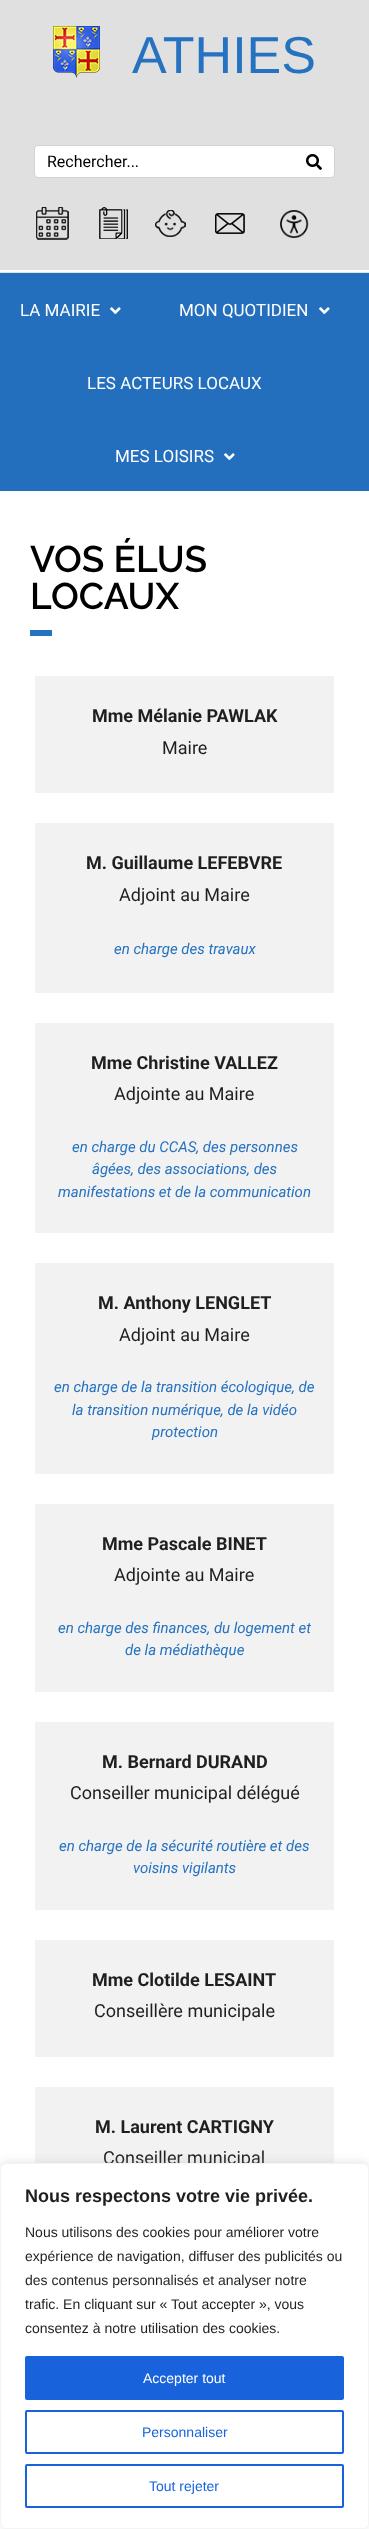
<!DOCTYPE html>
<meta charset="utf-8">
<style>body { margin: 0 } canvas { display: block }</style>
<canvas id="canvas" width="369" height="2529"></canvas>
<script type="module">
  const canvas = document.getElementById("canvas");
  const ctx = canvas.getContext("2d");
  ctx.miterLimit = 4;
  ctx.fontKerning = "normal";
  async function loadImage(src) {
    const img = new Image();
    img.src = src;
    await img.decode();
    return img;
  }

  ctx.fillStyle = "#ffffff";
  ctx.fillRect(0, 0, 369, 2529);
  ctx.fillStyle = "#e0e0e0";
  ctx.fillRect(0, 0, 369, 270);
  ctx.drawImage(await loadImage("img1.png"), 53, 26, 47, 52);
  ctx.font = "52px Liberation Sans";
  ctx.fillStyle = "#2572c0";
  ctx.fillText("ATHIES", 132, 73);
  ctx.fillStyle = "#ffffff";
  ctx.beginPath();
  ctx.roundRect(34.5, 145.5, 300, 32, 3.5);
  ctx.fill();
  ctx.strokeStyle = "#ced4da";
  ctx.stroke();
  ctx.font = "16px Roboto";
  ctx.fillStyle = "#000000";
  ctx.fillText("Rechercher...", 47, 167);
  ctx.drawImage(await loadImage("img2.png"), 306, 154, 16, 16);
  ctx.drawImage(await loadImage("img3.png"), 36, 207, 33, 33);
  ctx.drawImage(await loadImage("img4.png"), 99, 207, 29, 32);
  ctx.drawImage(await loadImage("img5.png"), 155, 210, 31, 27);
  ctx.drawImage(await loadImage("img6.png"), 215, 213, 30, 21);
  ctx.drawImage(await loadImage("img7.png"), 280, 210, 29, 28);
  ctx.fillStyle = "#236fbd";
  ctx.fillRect(0, 273, 369, 218);
  ctx.fillStyle = "#e2e2e2";
  ctx.fillRect(0, 272, 369, 1);
  ctx.font = "17px Roboto";
  ctx.fillStyle = "#ffffff";
  ctx.fillText("LA MAIRIE", 20, 316);
  ctx.drawImage(await loadImage("img8.png"), 110, 307, 11, 7);
  ctx.fillText("MON QUOTIDIEN", 179, 316);
  ctx.drawImage(await loadImage("img8.png"), 319, 307, 11, 7);
  ctx.fillText("LES ACTEURS LOCAUX", 87, 389);
  ctx.fillText("MES LOISIRS", 115, 462);
  ctx.drawImage(await loadImage("img8.png"), 224, 453, 11, 7);
  ctx.font = "600 37px Raleway";
  ctx.fillStyle = "#000000";
  ctx.fillText("VOS ÉLUS", 30, 572);
  ctx.fillText("LOCAUX", 30, 609);
  ctx.fillStyle = "#2572c0";
  ctx.fillRect(30, 630, 22, 6);
  ctx.fillStyle = "#f2f2f2";
  ctx.fillRect(35, 676, 299, 117);
  ctx.font = "bold 18px Roboto";
  ctx.fillStyle = "#1f1f1f";
  ctx.fillText("Mme Mélanie PAWLAK", 92, 722);
  ctx.font = "18px Roboto";
  ctx.fillText("Maire", 162, 754);
  ctx.fillStyle = "#f2f2f2";
  ctx.fillRect(35, 823, 299, 170);
  ctx.font = "bold 18px Roboto";
  ctx.fillStyle = "#1f1f1f";
  ctx.fillText("M. Guillaume LEFEBVRE", 86, 869);
  ctx.font = "18px Roboto";
  ctx.fillText("Adjoint au Maire", 119, 901);
  ctx.font = "italic 15px Roboto";
  ctx.fillStyle = "#2572c0";
  ctx.fillText("en charge des travaux", 114, 954);
  ctx.fillStyle = "#f2f2f2";
  ctx.fillRect(35, 1023, 299, 210);
  ctx.font = "bold 18px Roboto";
  ctx.fillStyle = "#1f1f1f";
  ctx.fillText("Mme Christine VALLEZ", 91, 1069);
  ctx.font = "18px Roboto";
  ctx.fillText("Adjointe au Maire", 114, 1100);
  ctx.font = "italic 15px Roboto";
  ctx.fillStyle = "#2572c0";
  ctx.fillText("en charge du CCAS, des personnes", 72, 1152);
  ctx.fillText("âgées, des associations, des", 92, 1174);
  ctx.fillText("manifestations et de la communication", 58, 1197);
  ctx.fillStyle = "#f2f2f2";
  ctx.fillRect(35, 1263, 299, 211);
  ctx.font = "bold 18px Roboto";
  ctx.fillStyle = "#1f1f1f";
  ctx.fillText("M. Anthony LENGLET", 98, 1309);
  ctx.font = "18px Roboto";
  ctx.fillText("Adjoint au Maire", 119, 1341);
  ctx.font = "italic 15px Roboto";
  ctx.fillStyle = "#2572c0";
  ctx.fillText("en charge de la transition écologique, de", 54, 1392);
  ctx.fillText("la transition numérique, de la vidéo", 72, 1415);
  ctx.fillText("protection", 152, 1437);
  ctx.fillStyle = "#f2f2f2";
  ctx.fillRect(35, 1504, 299, 188);
  ctx.font = "bold 18px Roboto";
  ctx.fillStyle = "#1f1f1f";
  ctx.fillText("Mme Pascale BINET", 102, 1550);
  ctx.font = "18px Roboto";
  ctx.fillText("Adjointe au Maire", 114, 1581);
  ctx.font = "italic 15px Roboto";
  ctx.fillStyle = "#2572c0";
  ctx.fillText("en charge des finances, du logement et", 58, 1633);
  ctx.fillText("de la médiathèque", 125, 1655);
  ctx.fillStyle = "#f2f2f2";
  ctx.fillRect(35, 1722, 299, 188);
  ctx.font = "bold 18px Roboto";
  ctx.fillStyle = "#1f1f1f";
  ctx.fillText("M. Bernard DURAND", 102, 1768);
  ctx.font = "18px Roboto";
  ctx.fillText("Conseiller municipal délégué", 70, 1799);
  ctx.font = "italic 15px Roboto";
  ctx.fillStyle = "#2572c0";
  ctx.fillText("en charge de la sécurité routière et des", 59, 1851);
  ctx.fillText("voisins vigilants", 133, 1873);
  ctx.fillStyle = "#f2f2f2";
  ctx.fillRect(35, 1940, 299, 117);
  ctx.font = "bold 18px Roboto";
  ctx.fillStyle = "#1f1f1f";
  ctx.fillText("Mme Clotilde LESAINT", 92, 1986);
  ctx.font = "18px Roboto";
  ctx.fillText("Conseillère municipale", 94, 2017);
  ctx.fillStyle = "#f2f2f2";
  ctx.fillRect(35, 2087, 299, 76);
  ctx.font = "bold 18px Roboto";
  ctx.fillStyle = "#1f1f1f";
  ctx.fillText("M. Laurent CARTIGNY", 95, 2133);
  ctx.font = "18px Roboto";
  ctx.fillText("Conseiller municipal", 103, 2164);
  ctx.fillStyle = "rgba(172, 171, 171, 0.3)";
  ctx.filter = "blur(5px)";
  ctx.beginPath();
  ctx.roundRect(0, 2162, 369, 366, 6);
  ctx.fill();
  ctx.filter = "none";
  ctx.fillStyle = "#ffffff";
  ctx.beginPath();
  ctx.roundRect(0.5, 2163.5, 368, 365, 5.5);
  ctx.fill();
  ctx.strokeStyle = "#f4f4f4";
  ctx.stroke();
  ctx.font = "bold 18px Liberation Sans";
  ctx.fillStyle = "#1f1f1f";
  ctx.fillText("Nous respectons votre vie privée.", 25, 2202);
  ctx.font = "14px Liberation Sans";
  ctx.fillText("Nous utilisons des cookies pour améliorer votre", 25, 2237);
  ctx.fillText("expérience de navigation, diffuser des publicités ou", 25, 2261);
  ctx.fillText("des contenus personnalisés et analyser notre", 25, 2285);
  ctx.fillText("trafic. En cliquant sur « Tout accepter », vous", 25, 2309);
  ctx.fillText("consentez à notre utilisation des cookies.", 25, 2333);
  ctx.fillStyle = "#1863dc";
  ctx.beginPath();
  ctx.roundRect(26, 2357, 317, 42, 1);
  ctx.fill();
  ctx.strokeStyle = "#1863dc";
  ctx.lineWidth = 2;
  ctx.stroke();
  ctx.fillStyle = "#ffffff";
  ctx.fillText("Accepter tout", 143, 2383);
  ctx.beginPath();
  ctx.roundRect(26, 2411, 317, 42, 1);
  ctx.stroke();
  ctx.fillStyle = "#1863dc";
  ctx.fillText("Personnaliser", 142, 2437);
  ctx.beginPath();
  ctx.roundRect(26, 2465, 317, 42, 1);
  ctx.stroke();
  ctx.fillText("Tout rejeter", 149, 2491);
</script>
